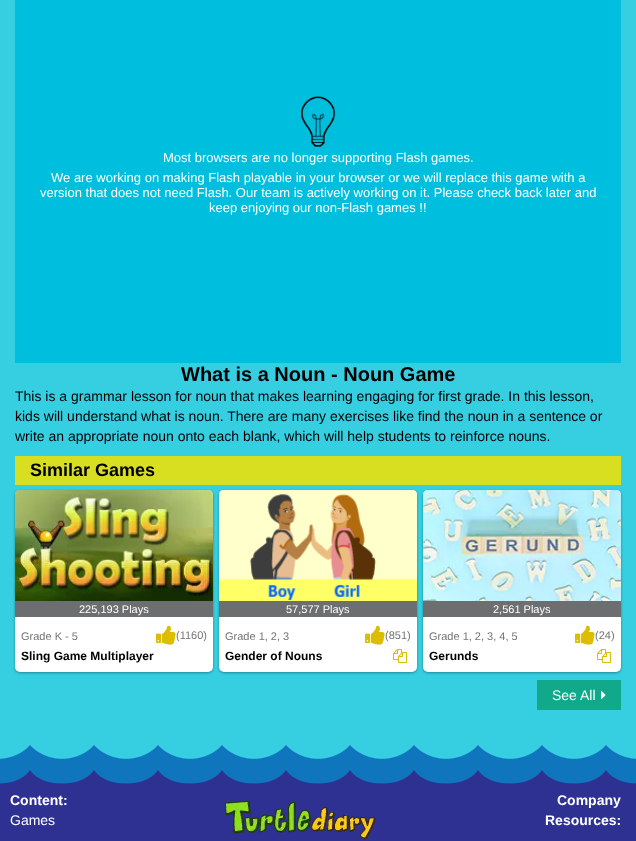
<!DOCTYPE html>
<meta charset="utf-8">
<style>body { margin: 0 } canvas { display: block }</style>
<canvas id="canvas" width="636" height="841"></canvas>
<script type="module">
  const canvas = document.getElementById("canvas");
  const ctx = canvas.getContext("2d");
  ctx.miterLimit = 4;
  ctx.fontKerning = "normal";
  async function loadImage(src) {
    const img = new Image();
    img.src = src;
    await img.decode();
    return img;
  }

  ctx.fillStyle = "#35cfe1";
  ctx.fillRect(0, 0, 636, 841);
  ctx.fillStyle = "#00bedd";
  ctx.fillRect(15, 0, 606, 363);
  ctx.drawImage(await loadImage("img1.png"), 300, 96, 36, 51);
  ctx.font = "13px Liberation Sans";
  ctx.fillStyle = "#ffffff";
  ctx.fillText("Most browsers are no longer supporting Flash games.", 163, 162);
  ctx.fillText("We are working on making Flash playable in your browser or we will replace this game with a", 51, 182);
  ctx.fillText("version that does not need Flash. Our team is actively working on it. Please check back later and", 40, 197);
  ctx.fillText("keep enjoying our non-Flash games !!", 209, 212);
  ctx.font = "bold 20px Liberation Sans";
  ctx.fillStyle = "#000000";
  ctx.fillText("What is a Noun - Noun Game", 181, 381);
  ctx.font = "14px Liberation Sans";
  ctx.fillText("This is a grammar lesson for noun that makes learning engaging for first grade. In this lesson,", 15, 401);
  ctx.fillText("kids will understand what is noun. There are many exercises like find the noun in a sentence or", 15, 421);
  ctx.fillText("write an appropriate noun onto each blank, which will help students to reinforce nouns.", 15, 441);
  ctx.fillStyle = "#d8df20";
  ctx.fillRect(15, 456, 606, 29);
  ctx.font = "bold 18px Liberation Sans";
  ctx.fillStyle = "#000000";
  ctx.fillText("Similar Games", 30, 476);
  ctx.fillStyle = "rgba(0, 0, 0, 0.24)";
  ctx.filter = "blur(1px)";
  ctx.beginPath();
  ctx.roundRect(15, 491, 198, 182, 5);
  ctx.fill();
  ctx.filter = "none";
  ctx.fillStyle = "rgba(0, 0, 0, 0.12)";
  ctx.filter = "blur(1.5px)";
  ctx.beginPath();
  ctx.roundRect(15, 491, 198, 182, 5);
  ctx.fill();
  ctx.filter = "none";
  ctx.fillStyle = "#ffffff";
  ctx.beginPath();
  ctx.roundRect(15, 490, 198, 182, 5);
  ctx.fill();
  ctx.drawImage(await loadImage("img2.png"), 15, 490, 198, 111);
  ctx.drawImage(await loadImage("img3.png"), 15, 490, 198, 5);
  ctx.fillStyle = "#6d6e70";
  ctx.fillRect(15, 601, 198, 16);
  ctx.font = "11px Liberation Sans";
  ctx.fillStyle = "#ffffff";
  ctx.fillText("225,193 Plays", 79, 613);
  ctx.fillStyle = "#757577";
  ctx.fillText("Grade K - 5", 21, 640);
  ctx.drawImage(await loadImage("img4.png"), 156, 625, 20, 20);
  ctx.fillText("(1160)", 176, 639);
  ctx.font = "bold 12px Liberation Sans";
  ctx.fillStyle = "#000000";
  ctx.fillText("Sling Game Multiplayer", 21, 660);
  ctx.fillStyle = "rgba(0, 0, 0, 0.24)";
  ctx.filter = "blur(1px)";
  ctx.beginPath();
  ctx.roundRect(219, 491, 198, 182, 5);
  ctx.fill();
  ctx.filter = "none";
  ctx.fillStyle = "rgba(0, 0, 0, 0.12)";
  ctx.filter = "blur(1.5px)";
  ctx.beginPath();
  ctx.roundRect(219, 491, 198, 182, 5);
  ctx.fill();
  ctx.filter = "none";
  ctx.fillStyle = "#ffffff";
  ctx.beginPath();
  ctx.roundRect(219, 490, 198, 182, 5);
  ctx.fill();
  ctx.drawImage(await loadImage("img5.png"), 219, 490, 198, 111);
  ctx.drawImage(await loadImage("img6.png"), 219, 490, 198, 5);
  ctx.fillStyle = "#6d6e70";
  ctx.fillRect(219, 601, 198, 16);
  ctx.font = "11px Liberation Sans";
  ctx.fillStyle = "#ffffff";
  ctx.fillText("57,577 Plays", 286, 613);
  ctx.fillStyle = "#757577";
  ctx.fillText("Grade 1, 2, 3", 225, 640);
  ctx.drawImage(await loadImage("img4.png"), 365, 625, 20, 20);
  ctx.fillText("(851)", 385, 639);
  ctx.font = "bold 12px Liberation Sans";
  ctx.fillStyle = "#000000";
  ctx.fillText("Gender of Nouns", 225, 660);
  ctx.drawImage(await loadImage("img7.png"), 393, 649, 14, 14);
  ctx.fillStyle = "rgba(0, 0, 0, 0.24)";
  ctx.filter = "blur(1px)";
  ctx.beginPath();
  ctx.roundRect(423, 491, 198, 182, 5);
  ctx.fill();
  ctx.filter = "none";
  ctx.fillStyle = "rgba(0, 0, 0, 0.12)";
  ctx.filter = "blur(1.5px)";
  ctx.beginPath();
  ctx.roundRect(423, 491, 198, 182, 5);
  ctx.fill();
  ctx.filter = "none";
  ctx.fillStyle = "#ffffff";
  ctx.beginPath();
  ctx.roundRect(423, 490, 198, 182, 5);
  ctx.fill();
  ctx.drawImage(await loadImage("img8.png"), 423, 490, 198, 111);
  ctx.drawImage(await loadImage("img9.png"), 423, 490, 198, 5);
  ctx.fillStyle = "#6d6e70";
  ctx.fillRect(423, 601, 198, 16);
  ctx.font = "11px Liberation Sans";
  ctx.fillStyle = "#ffffff";
  ctx.fillText("2,561 Plays", 493, 613);
  ctx.fillStyle = "#757577";
  ctx.fillText("Grade 1, 2, 3, 4, 5", 429, 640);
  ctx.drawImage(await loadImage("img4.png"), 575, 625, 20, 20);
  ctx.fillText("(24)", 595, 639);
  ctx.font = "bold 12px Liberation Sans";
  ctx.fillStyle = "#000000";
  ctx.fillText("Gerunds", 429, 660);
  ctx.drawImage(await loadImage("img7.png"), 597, 649, 14, 14);
  ctx.fillStyle = "#10a98b";
  ctx.fillRect(537, 680, 84, 30);
  ctx.font = "14px Liberation Sans";
  ctx.fillStyle = "#ffffff";
  ctx.fillText("See All", 552, 700);
  ctx.drawImage(await loadImage("img10.png"), 601, 691, 5, 8);
  ctx.fillStyle = "#2e3192";
  ctx.fillRect(0, 770, 636, 71);
  ctx.drawImage(await loadImage("img11.png"), 0, 745, 636, 39);
  ctx.font = "bold 14px Liberation Sans";
  ctx.fillStyle = "#ffffff";
  ctx.fillText("Content:", 10, 805);
  ctx.font = "14px Liberation Sans";
  ctx.fillText("Games", 10, 825);
  ctx.drawImage(await loadImage("img12.png"), 225, 800, 151, 39);
  ctx.font = "bold 14px Liberation Sans";
  ctx.fillText("Company", 557, 805);
  ctx.fillText("Resources:", 545, 825);
</script>
